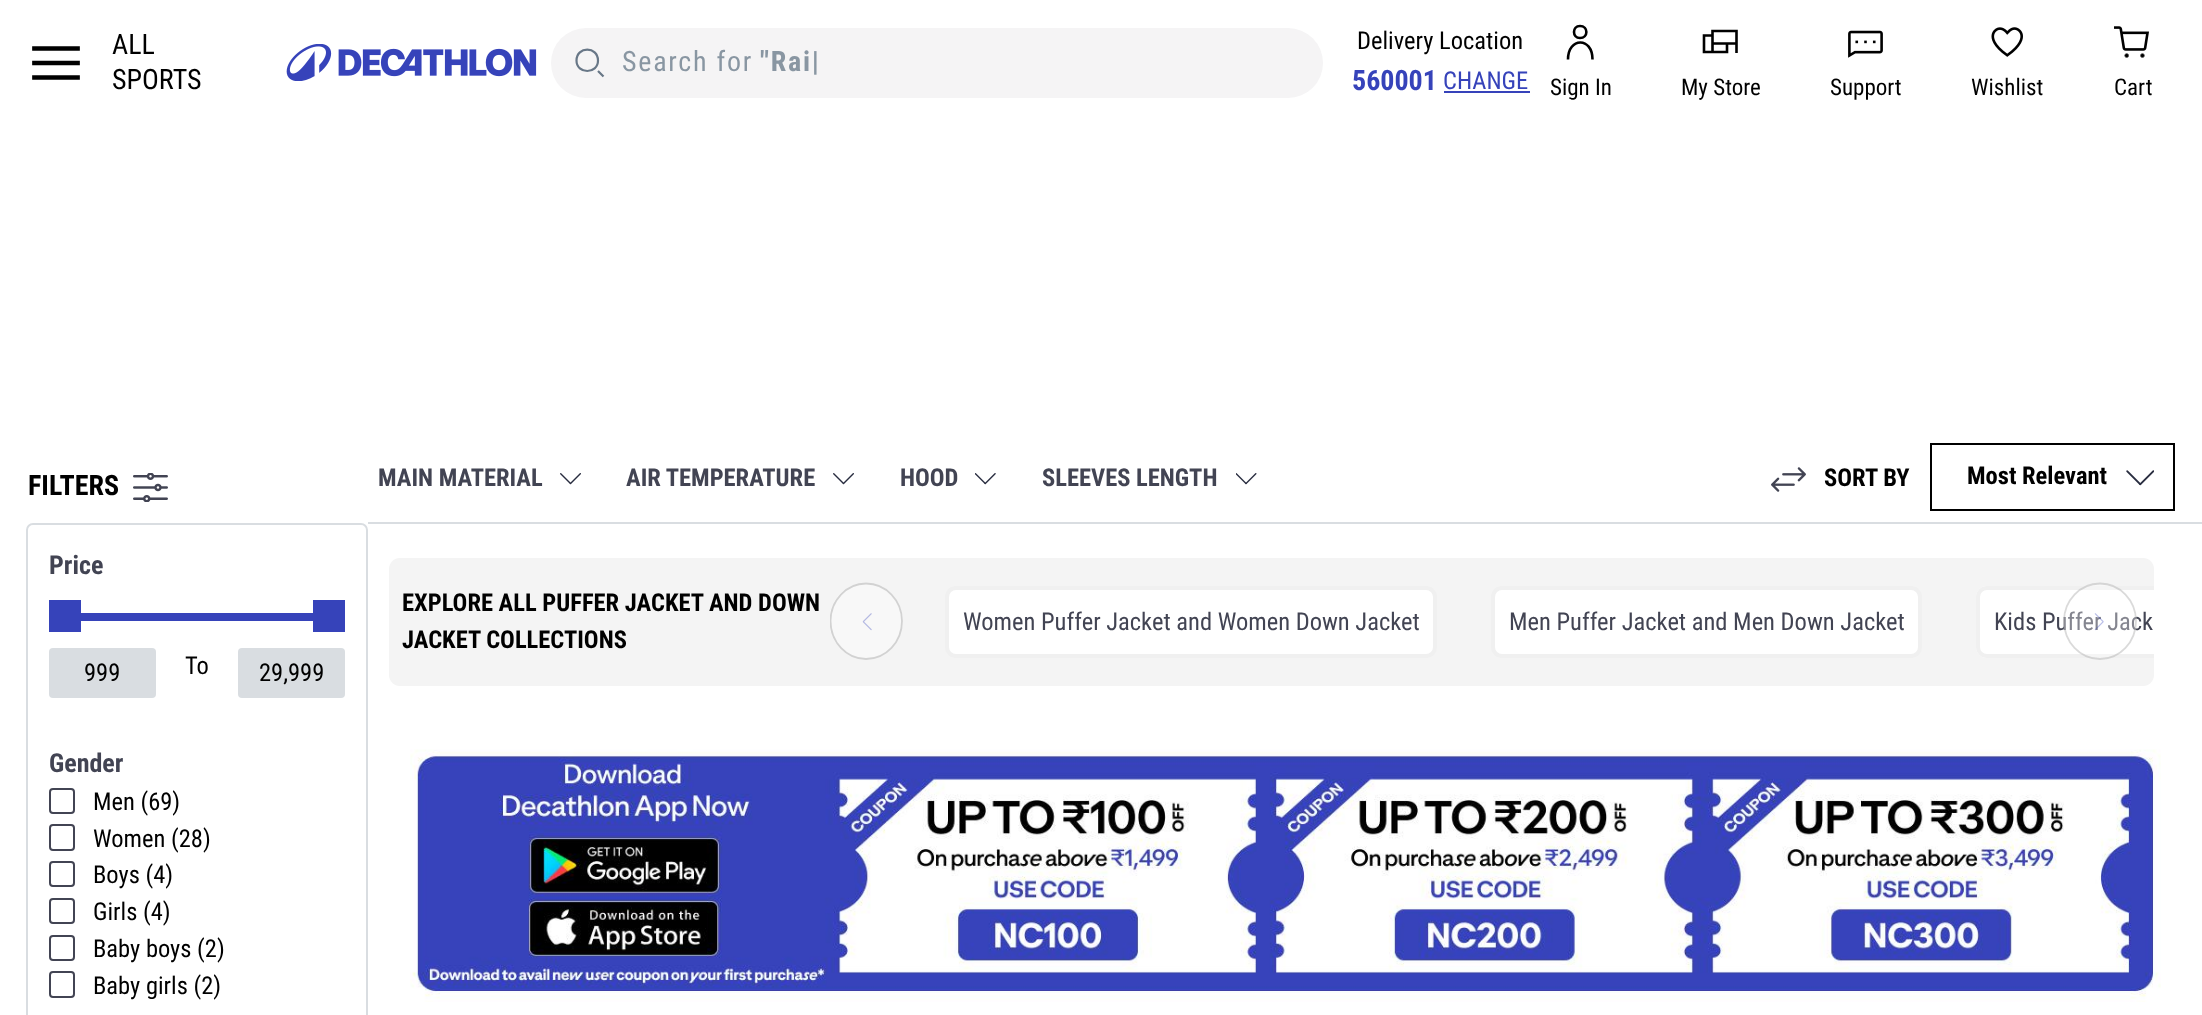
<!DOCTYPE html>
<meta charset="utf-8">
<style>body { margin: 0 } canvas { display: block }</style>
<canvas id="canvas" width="2202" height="1015"></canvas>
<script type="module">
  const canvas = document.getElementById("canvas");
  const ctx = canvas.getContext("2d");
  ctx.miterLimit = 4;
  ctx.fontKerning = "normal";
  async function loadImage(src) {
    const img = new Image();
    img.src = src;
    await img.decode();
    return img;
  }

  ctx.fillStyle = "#ffffff";
  ctx.fillRect(0, 0, 2202, 1015);
  ctx.beginPath();
  ctx.moveTo(34.5, 63);
  ctx.lineTo(77.5, 63);
  ctx.moveTo(34.5, 48.5);
  ctx.lineTo(77.5, 48.5);
  ctx.moveTo(34.5, 77.5);
  ctx.lineTo(77.5, 77.5);
  ctx.strokeStyle = "#000000";
  ctx.lineWidth = 4.7;
  ctx.lineCap = "square";
  ctx.stroke();
  ctx.font = "28px Roboto Condensed";
  ctx.fillStyle = "#000000";
  ctx.fillText("ALL", 112, 54);
  ctx.fillText("SPORTS", 112, 89);
  ctx.drawImage(await loadImage("img1.png"), 286, 44, 251, 37);
  ctx.fillStyle = "#f5f4f5";
  ctx.beginPath();
  ctx.roundRect(551, 28, 772, 70, 35);
  ctx.fill();
  ctx.beginPath();
  ctx.moveTo(603.5, 76.5);
  ctx.lineTo(598, 71);
  ctx.moveTo(598, 60.5);
  ctx.bezierCurveTo(598, 74.5, 576.5, 74.5, 576.5, 60.5);
  ctx.bezierCurveTo(576.5, 46, 598, 46, 598, 60.5);
  ctx.closePath();
  ctx.strokeStyle = "#687787";
  ctx.lineWidth = 2.2;
  ctx.lineCap = "butt";
  ctx.stroke();
  ctx.letterSpacing = "1.75px";
  ctx.fillStyle = "#8996a2";
  ctx.fillText("Search for", 622, 71);
  ctx.font = "bold 28px Roboto Condensed";
  ctx.fillText("\"Rai|", 760, 71);
  ctx.letterSpacing = "0px";
  ctx.font = "24.5px Roboto Condensed";
  ctx.fillStyle = "#000000";
  ctx.fillText("Delivery Location", 1357, 49);
  ctx.font = "bold 28px Roboto Condensed";
  ctx.fillStyle = "#3643ba";
  ctx.fillText("560001", 1352, 90);
  ctx.font = "24.5px Roboto Condensed";
  ctx.fillText("CHANGE", 1443, 89);
  ctx.fillRect(1444, 91, 86, 2);
  ctx.beginPath();
  ctx.moveTo(1568, 59.5);
  ctx.bezierCurveTo(1568, 37, 1592.5, 36.5, 1592.5, 59.5);
  ctx.moveTo(1580, 26);
  ctx.bezierCurveTo(1572, 26, 1572, 38, 1580, 38);
  ctx.bezierCurveTo(1588.5, 38, 1588.5, 26, 1580, 26);
  ctx.closePath();
  ctx.strokeStyle = "#000000";
  ctx.lineWidth = 2.6;
  ctx.stroke();
  ctx.font = "23px Roboto Condensed";
  ctx.fillStyle = "#000000";
  ctx.fillText("Sign In", 1550, 95);
  ctx.beginPath();
  ctx.moveTo(1712.5, 43.5);
  ctx.lineTo(1712.5, 31);
  ctx.lineTo(1736.5, 31);
  ctx.lineTo(1736.5, 43.5);
  ctx.closePath();
  ctx.moveTo(1712.5, 43.5);
  ctx.lineTo(1712.5, 52);
  ctx.moveTo(1712.5, 35.5);
  ctx.lineTo(1704, 35.5);
  ctx.lineTo(1704, 52);
  ctx.lineTo(1727, 52);
  ctx.lineTo(1727, 43);
  ctx.moveTo(1736.5, 43.5);
  ctx.lineTo(1736.5, 53);
  ctx.stroke();
  ctx.fillText("My Store", 1681, 95);
  ctx.drawImage(await loadImage("img2.png"), 1848, 30, 35, 28);
  ctx.fillText("Support", 1830, 95);
  ctx.drawImage(await loadImage("img3.png"), 1991, 27, 32, 30);
  ctx.fillText("Wishlist", 1971, 95);
  ctx.drawImage(await loadImage("img4.png"), 2114, 26, 35, 32);
  ctx.fillText("Cart", 2114, 95);
  ctx.font = "bold 28px Roboto Condensed";
  ctx.fillText("FILTERS", 28, 495);
  ctx.drawImage(await loadImage("img5.png"), 133, 473, 35, 29);
  ctx.fillStyle = "#d9dde1";
  ctx.fillRect(368, 522, 1834, 2);
  ctx.font = "bold 24.5px Roboto Condensed";
  ctx.fillStyle = "#424453";
  ctx.fillText("MAIN MATERIAL", 378, 486);
  ctx.drawImage(await loadImage("img6.png"), 560, 473, 21, 12);
  ctx.fillText("AIR TEMPERATURE", 626, 486);
  ctx.drawImage(await loadImage("img6.png"), 833, 473, 21, 12);
  ctx.fillText("HOOD", 900, 486);
  ctx.drawImage(await loadImage("img7.png"), 975, 473, 21, 12);
  ctx.fillText("SLEEVES LENGTH", 1042, 486);
  ctx.drawImage(await loadImage("img8.png"), 1236, 473, 21, 12);
  ctx.drawImage(await loadImage("img9.png"), 1771, 467, 35, 25);
  ctx.fillStyle = "#000000";
  ctx.fillText("SORT BY", 1824, 486);
  ctx.lineWidth = 2;
  ctx.strokeRect(1931, 444, 243, 66);
  ctx.fillText("Most Relevant", 1967, 484);
  ctx.drawImage(await loadImage("img10.png"), 2126, 470, 28, 16);
  ctx.beginPath();
  ctx.roundRect(27, 524, 340, 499, 6);
  ctx.strokeStyle = "#d9dde1";
  ctx.stroke();
  ctx.font = "bold 26px Roboto Condensed";
  ctx.fillStyle = "#424453";
  ctx.fillText("Price", 49, 574);
  ctx.fillStyle = "#3643ba";
  ctx.fillRect(49, 600, 32, 32);
  ctx.fillRect(81, 613, 232, 8);
  ctx.fillRect(313, 600, 32, 32);
  ctx.fillStyle = "#d9dde1";
  ctx.beginPath();
  ctx.roundRect(49, 648, 107, 50, 4);
  ctx.fill();
  ctx.font = "24.5px Roboto Condensed";
  ctx.fillStyle = "#000000";
  ctx.fillText("999", 84, 681);
  ctx.fillText("To", 185, 674);
  ctx.fillStyle = "#d9dde1";
  ctx.beginPath();
  ctx.roundRect(238, 648, 107, 50, 4);
  ctx.fill();
  ctx.fillStyle = "#000000";
  ctx.fillText("29,999", 259, 681);
  ctx.font = "bold 26px Roboto Condensed";
  ctx.fillStyle = "#424453";
  ctx.fillText("Gender", 49, 772);
  ctx.beginPath();
  ctx.roundRect(50, 789, 24, 24, 3);
  ctx.strokeStyle = "#424453";
  ctx.stroke();
  ctx.font = "24.5px Roboto Condensed";
  ctx.fillStyle = "#000000";
  ctx.fillText("Men (69)", 93, 810);
  ctx.beginPath();
  ctx.roundRect(50, 825, 24, 25, 3);
  ctx.stroke();
  ctx.fillText("Women (28)", 93, 847);
  ctx.beginPath();
  ctx.roundRect(50, 862, 24, 24, 3);
  ctx.stroke();
  ctx.fillText("Boys (4)", 93, 883);
  ctx.beginPath();
  ctx.roundRect(50, 899, 24, 24, 3);
  ctx.stroke();
  ctx.fillText("Girls (4)", 93, 920);
  ctx.beginPath();
  ctx.roundRect(50, 936, 24, 24, 3);
  ctx.stroke();
  ctx.fillText("Baby boys (2)", 93, 957);
  ctx.beginPath();
  ctx.roundRect(50, 972, 24, 25, 3);
  ctx.stroke();
  ctx.fillText("Baby girls (2)", 93, 994);
  ctx.fillStyle = "#f4f4f4";
  ctx.beginPath();
  ctx.roundRect(389, 558, 1765, 128, 11);
  ctx.fill();
  ctx.font = "bold 24.5px Roboto Condensed";
  ctx.fillStyle = "#000000";
  ctx.fillText("EXPLORE ALL PUFFER JACKET AND DOWN", 402, 611);
  ctx.fillText("JACKET COLLECTIONS", 402, 648);
  ctx.save();
  ctx.beginPath();
  ctx.rect(830, 572, 1324, 100);
  ctx.clip();
  ctx.fillStyle = "#f8f8f8";
  ctx.beginPath();
  ctx.ellipse(866, 621, 37, 38.5, 0, 0, Math.PI * 2);
  ctx.fill();
  ctx.beginPath();
  ctx.moveTo(866, 583.5);
  ctx.bezierCurveTo(886, 583.5, 902, 600.5, 902, 621);
  ctx.bezierCurveTo(902, 642, 886, 659, 866, 659);
  ctx.bezierCurveTo(846.5, 659, 830.5, 642, 830.5, 621);
  ctx.bezierCurveTo(830.5, 600.5, 846.5, 583.5, 866, 583.5);
  ctx.closePath();
  ctx.strokeStyle = "#d2d2d2";
  ctx.lineWidth = 1.8;
  ctx.stroke();
  ctx.restore();
  ctx.drawImage(await loadImage("img11.png"), 862, 613, 10, 18);
  ctx.fillStyle = "#ffffff";
  ctx.beginPath();
  ctx.roundRect(1976, 586, 178, 72, [11, 0, 0, 11]);
  ctx.fill();
  ctx.save();
  ctx.beginPath();
  ctx.rect(830, 572, 1324, 100);
  ctx.clip();
  ctx.beginPath();
  ctx.roundRect(1978, 588, 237, 68, 9);
  ctx.strokeStyle = "#f0f0f0";
  ctx.lineWidth = 4;
  ctx.stroke();
  ctx.restore();
  ctx.font = "24.5px Roboto Condensed";
  ctx.fillStyle = "#424453";
  ctx.fillText("Kids Puffer Jack", 1994, 630);
  ctx.fillStyle = "rgba(255, 255, 255, 0.35)";
  ctx.beginPath();
  ctx.ellipse(2100, 621, 37, 38.5, 0, 0, Math.PI * 2);
  ctx.fill();
  ctx.beginPath();
  ctx.moveTo(2100, 583.5);
  ctx.bezierCurveTo(2120, 583.5, 2136, 600.5, 2136, 621);
  ctx.bezierCurveTo(2136, 642, 2120, 659, 2100, 659);
  ctx.bezierCurveTo(2080, 659, 2064, 642, 2064, 621);
  ctx.bezierCurveTo(2064, 600.5, 2080, 583.5, 2100, 583.5);
  ctx.closePath();
  ctx.strokeStyle = "rgba(148, 148, 148, 0.35)";
  ctx.lineWidth = 1.8;
  ctx.stroke();
  ctx.drawImage(await loadImage("img12.png"), 2094, 613, 10, 18);
  ctx.fillStyle = "#ffffff";
  ctx.beginPath();
  ctx.roundRect(947, 588, 488, 68, 9);
  ctx.fill();
  ctx.strokeStyle = "#f0f0f0";
  ctx.lineWidth = 4;
  ctx.stroke();
  ctx.fillStyle = "#424453";
  ctx.fillText("Women Puffer Jacket and Women Down Jacket", 963, 630);
  ctx.fillStyle = "#ffffff";
  ctx.beginPath();
  ctx.roundRect(1493, 588, 427, 68, 9);
  ctx.fill();
  ctx.stroke();
  ctx.fillStyle = "#424453";
  ctx.fillText("Men Puffer Jacket and Men Down Jacket", 1509, 630);
  ctx.drawImage(await loadImage("img13.png"), 410, 749, 1751, 253);
</script>
